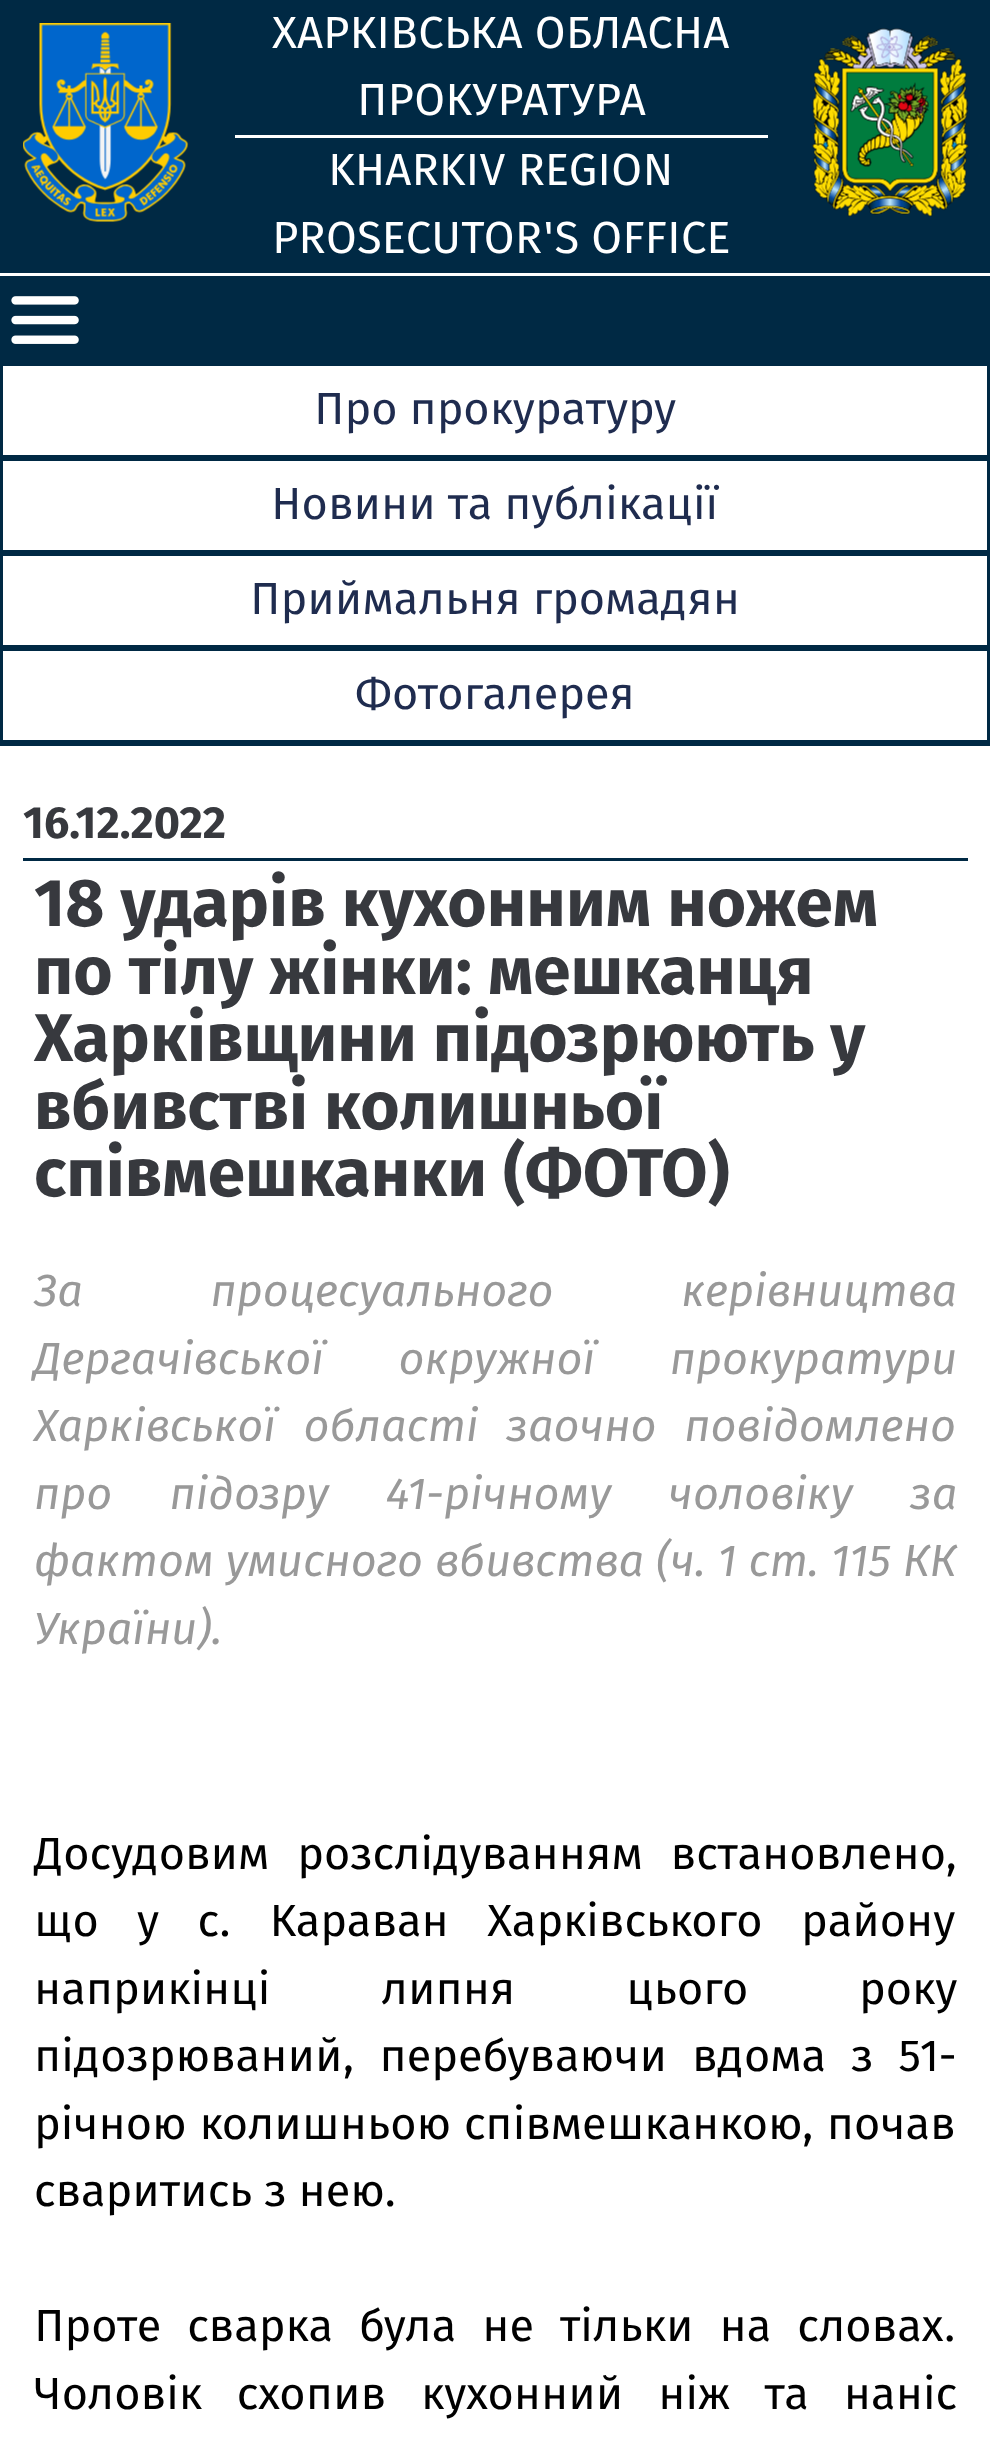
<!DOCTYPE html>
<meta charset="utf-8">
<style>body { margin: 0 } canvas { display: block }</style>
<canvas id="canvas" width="990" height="2457"></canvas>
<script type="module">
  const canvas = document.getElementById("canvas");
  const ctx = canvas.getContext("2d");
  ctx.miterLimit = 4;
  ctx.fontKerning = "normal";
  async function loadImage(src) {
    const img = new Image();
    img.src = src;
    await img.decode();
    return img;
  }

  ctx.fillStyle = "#ffffff";
  ctx.fillRect(0, 0, 990, 2457);
  ctx.fillStyle = "#002944";
  ctx.fillRect(0, 0, 990, 273);
  ctx.drawImage(await loadImage("img1.png"), 23, 23, 166, 199);
  ctx.fillStyle = "#ffffff";
  ctx.fillRect(235, 135, 533, 3);
  ctx.font = "45px Fira Sans";
  ctx.fillText("ХАРКІВСЬКА ОБЛАСНА", 272, 48);
  ctx.fillText("ПРОКУРАТУРА", 357, 115);
  ctx.fillText("KHARKIV REGION", 328, 185);
  ctx.fillText("PROSECUTOR'S OFFICE", 272, 253);
  ctx.drawImage(await loadImage("img2.png"), 812, 28, 156, 189);
  ctx.fillStyle = "#002944";
  ctx.fillRect(0, 276, 990, 87);
  ctx.drawImage(await loadImage("img3.png"), 11, 296, 68, 48);
  ctx.fillRect(0, 743, 990, 3);
  ctx.strokeStyle = "#002944";
  ctx.lineWidth = 3;
  ctx.strokeRect(1.5, 364.5, 987, 92);
  ctx.fillStyle = "#1f2c4f";
  ctx.fillText("Про прокуратуру", 314, 424);
  ctx.strokeRect(1.5, 459.5, 987, 92);
  ctx.fillText("Новини та публікації", 271, 519);
  ctx.strokeRect(1.5, 554.5, 987, 92);
  ctx.fillText("Приймальня громадян", 250, 614);
  ctx.strokeRect(1.5, 649.5, 987, 92);
  ctx.fillText("Фотогалерея", 355, 709);
  ctx.fillStyle = "#002944";
  ctx.fillRect(23, 858, 945, 3);
  ctx.font = "bold 45px Fira Sans";
  ctx.fillStyle = "#37393e";
  ctx.fillText("16.12.2022", 23, 838);
  ctx.font = "bold 67.5px Fira Sans";
  ctx.fillText("18 ударів кухонним ножем", 34, 926);
  ctx.fillText("по тілу жінки: мешканця", 34, 994);
  ctx.fillText("Харківщини підозрюють у", 34, 1061);
  ctx.fillText("вбивстві колишньої", 34, 1129);
  ctx.fillText("співмешканки (ФОТО)", 34, 1196);
  ctx.wordSpacing = "116px";
  ctx.font = "italic 45px Fira Sans";
  ctx.fillStyle = "#999999";
  ctx.fillText("За процесуального керівництва", 34, 1306);
  ctx.wordSpacing = "63px";
  ctx.fillText("Дергачівської окружної прокуратури", 34, 1374);
  ctx.wordSpacing = "16px";
  ctx.fillText("Харківської області заочно повідомлено", 34, 1441);
  ctx.wordSpacing = "45.5px";
  ctx.fillText("про підозру 41-річному чоловіку за", 34, 1509);
  ctx.wordSpacing = "0.25px";
  ctx.fillText("фактом умисного вбивства (ч. 1 ст. 115 КК", 34, 1576);
  ctx.wordSpacing = "0px";
  ctx.fillText("України).", 34, 1644);
  ctx.wordSpacing = "16px";
  ctx.font = "45px Fira Sans";
  ctx.fillStyle = "#000000";
  ctx.fillText("Досудовим розслідуванням встановлено,", 34, 1869);
  ctx.wordSpacing = "26.5px";
  ctx.fillText("що у с. Караван Харківського району", 34, 1936);
  ctx.wordSpacing = "99px";
  ctx.fillText("наприкінці липня цього року", 34, 2004);
  ctx.wordSpacing = "13px";
  ctx.fillText("підозрюваний, перебуваючи вдома з 51-", 34, 2071);
  ctx.wordSpacing = "1px";
  ctx.fillText("річною колишньою співмешканкою, почав", 34, 2139);
  ctx.wordSpacing = "0px";
  ctx.fillText("сваритись з нею.", 34, 2206);
  ctx.wordSpacing = "14px";
  ctx.fillText("Проте сварка була не тільки на словах.", 34, 2341);
  ctx.wordSpacing = "23px";
  ctx.fillText("Чоловік схопив кухонний ніж та наніс", 34, 2409);
</script>
